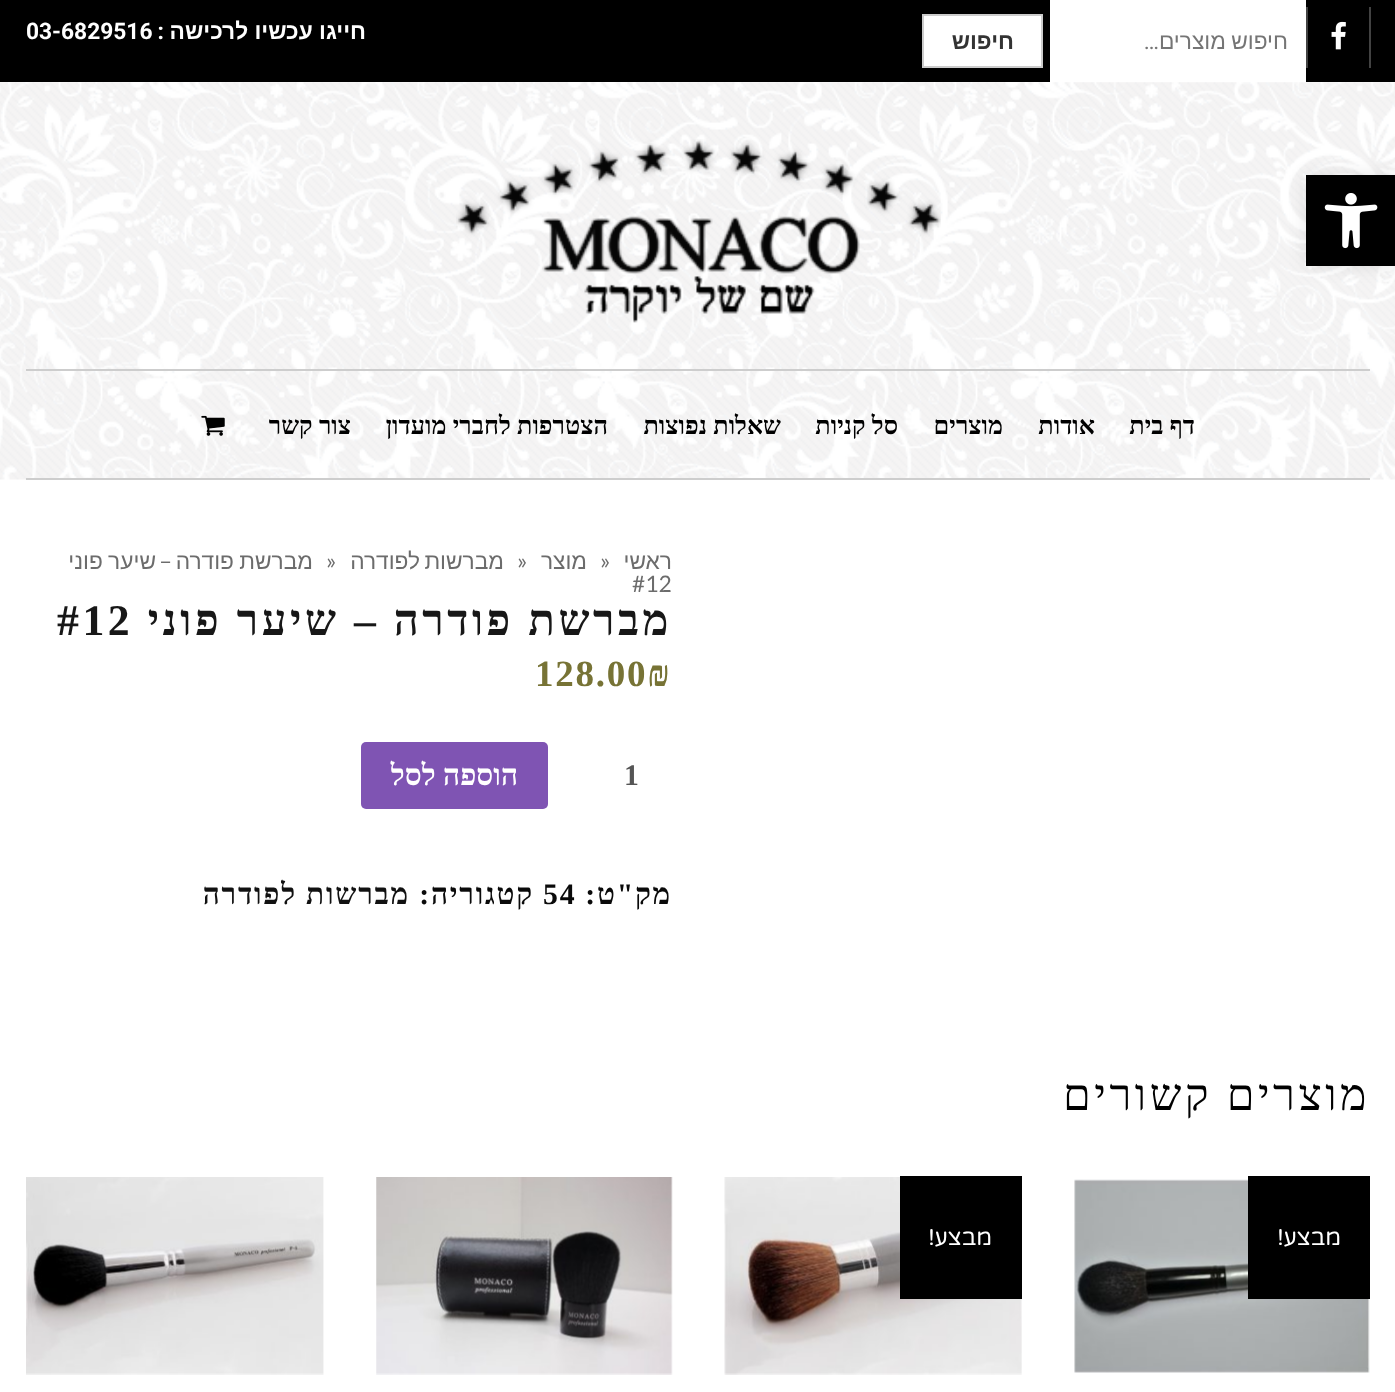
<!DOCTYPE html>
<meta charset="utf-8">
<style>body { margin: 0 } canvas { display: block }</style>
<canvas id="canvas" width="1395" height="1392"></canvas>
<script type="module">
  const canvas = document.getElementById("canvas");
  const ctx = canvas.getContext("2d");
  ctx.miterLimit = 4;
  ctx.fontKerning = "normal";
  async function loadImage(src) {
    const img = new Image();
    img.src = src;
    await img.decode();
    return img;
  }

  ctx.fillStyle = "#ffffff";
  ctx.fillRect(0, 0, 1395, 1392);
  ctx.fillStyle = "#000000";
  ctx.fillRect(0, 0, 1395, 82);
  ctx.direction = "rtl";
  ctx.font = "bold 22.75px Liberation Sans";
  ctx.fillStyle = "#ffffff";
  ctx.fillText("חייגו עכשיו לרכישה", 366, 39);
  ctx.font = "bold 22.75px Roboto";
  ctx.fillText(":", 164, 39);
  ctx.direction = "ltr";
  ctx.fillText("03-6829516", 26, 39);
  ctx.fillStyle = "#424242";
  ctx.fillRect(1369, 7, 2, 61);
  ctx.fillRect(1306, 7, 2, 61);
  ctx.drawImage(await loadImage("img1.png"), 1331, 21, 15, 29);
  ctx.fillStyle = "#ffffff";
  ctx.fillRect(1050, 0, 256, 82);
  ctx.wordSpacing = "-1px";
  ctx.direction = "rtl";
  ctx.font = "22.75px Liberation Sans";
  ctx.fillStyle = "#757575";
  ctx.fillText("חיפוש מוצרים", 1288, 49);
  ctx.wordSpacing = "0px";
  ctx.font = "22.75px Roboto";
  ctx.fillText("…", 1159, 49);
  ctx.fillStyle = "#ffffff";
  ctx.beginPath();
  ctx.rect(923, 15, 119, 52);
  ctx.fill();
  ctx.strokeStyle = "#cccccc";
  ctx.lineWidth = 2;
  ctx.stroke();
  ctx.font = "bold 22.75px Liberation Sans";
  ctx.fillStyle = "#333333";
  ctx.fillText("חיפוש", 1014, 49);
  ctx.drawImage(await loadImage("img2.png"), 0, 82, 1395, 398);
  ctx.drawImage(await loadImage("img3.png"), 456, 139, 485, 184);
  ctx.fillStyle = "#cdcdcd";
  ctx.fillRect(26, 369, 1344, 2);
  ctx.fillRect(26, 478, 1344, 2);
  ctx.font = "bold 25.25px Liberation Serif";
  ctx.fillStyle = "#000000";
  ctx.fillText("דף בית", 1195, 434);
  ctx.fillText("אודות", 1095, 434);
  ctx.fillText("מוצרים", 1003, 434);
  ctx.fillText("סל קניות", 898, 434);
  ctx.fillText("שאלות נפוצות", 781, 434);
  ctx.fillText("הצטרפות לחברי מועדון", 608, 434);
  ctx.fillText("צור קשר", 351, 434);
  ctx.drawImage(await loadImage("img4.png"), 201, 415, 24, 21);
  ctx.font = "22.75px Liberation Sans";
  ctx.fillStyle = "#6c6c6c";
  ctx.fillText("ראשי", 672, 569);
  ctx.direction = "ltr";
  ctx.font = "22.75px Lato";
  ctx.fillText("»", 600, 569);
  ctx.direction = "rtl";
  ctx.font = "22.75px Liberation Sans";
  ctx.fillText("מוצר", 587, 569);
  ctx.direction = "ltr";
  ctx.font = "22.75px Lato";
  ctx.fillText("»", 517, 569);
  ctx.wordSpacing = "-2px";
  ctx.direction = "rtl";
  ctx.font = "22.75px Liberation Sans";
  ctx.fillText("מברשות לפודרה", 504, 569);
  ctx.wordSpacing = "0px";
  ctx.direction = "ltr";
  ctx.font = "22.75px Lato";
  ctx.fillText("»", 326, 569);
  ctx.wordSpacing = "-1px";
  ctx.direction = "rtl";
  ctx.font = "22.75px Liberation Sans";
  ctx.fillText("מברשת פודרה", 313, 569);
  ctx.wordSpacing = "0px";
  ctx.font = "22.75px Lato";
  ctx.fillText("–", 172, 569);
  ctx.wordSpacing = "-1px";
  ctx.font = "22.75px Liberation Sans";
  ctx.fillText("שיער פוני", 156, 569);
  ctx.wordSpacing = "0px";
  ctx.direction = "ltr";
  ctx.font = "22.75px Lato";
  ctx.fillText("#12", 632, 592);
  ctx.letterSpacing = "3.5px";
  ctx.direction = "rtl";
  ctx.font = "bold 43.75px Liberation Serif";
  ctx.fillStyle = "#171717";
  ctx.fillText("מברשת פודרה – שיער פוני", 672, 635);
  ctx.direction = "ltr";
  ctx.fillText("#12", 57, 635);
  ctx.letterSpacing = "1.75px";
  ctx.font = "bold 37px Liberation Serif";
  ctx.fillStyle = "#777335";
  ctx.fillText("128.00₪", 535, 686);
  ctx.letterSpacing = "0px";
  ctx.font = "bold 29.75px Liberation Serif";
  ctx.fillStyle = "#555555";
  ctx.fillText("1", 624, 785);
  ctx.fillStyle = "#7f54b3";
  ctx.beginPath();
  ctx.roundRect(361, 742, 187, 67, 5);
  ctx.fill();
  ctx.direction = "rtl";
  ctx.fillStyle = "#ffffff";
  ctx.fillText("הוספה לסל", 518, 785);
  ctx.letterSpacing = "1.75px";
  ctx.fillStyle = "#0a0a0a";
  ctx.fillText("מק\"ט:", 672, 904);
  ctx.direction = "ltr";
  ctx.fillText("54", 543, 904);
  ctx.direction = "rtl";
  ctx.fillText("קטגוריה:", 534, 904);
  ctx.fillStyle = "#111111";
  ctx.fillText("מברשות לפודרה", 410, 904);
  ctx.letterSpacing = "3.5px";
  ctx.font = "44.5px Liberation Serif";
  ctx.fillStyle = "#000000";
  ctx.fillText("מוצרים קשורים", 1370, 1110);
  ctx.drawImage(await loadImage("img5.png"), 1074, 1179, 296, 194);
  ctx.fillRect(1248, 1176, 122, 123);
  ctx.letterSpacing = "0px";
  ctx.font = "22.75px Varela Round";
  ctx.fillStyle = "#ffffff";
  ctx.fillText("מבצע!", 1341, 1245);
  ctx.drawImage(await loadImage("img6.png"), 724, 1177, 298, 198);
  ctx.fillStyle = "#000000";
  ctx.fillRect(900, 1176, 122, 123);
  ctx.fillStyle = "#ffffff";
  ctx.fillText("מבצע!", 992, 1245);
  ctx.drawImage(await loadImage("img7.png"), 376, 1177, 297, 198);
  ctx.drawImage(await loadImage("img8.png"), 26, 1177, 298, 198);
  ctx.fillStyle = "rgba(0, 0, 0, 0.1)";
  ctx.filter = "blur(9px)";
  ctx.beginPath();
  ctx.rect(1306, 175, 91, 91);
  ctx.fill();
  ctx.filter = "none";
  ctx.fillStyle = "#000000";
  ctx.fillRect(1306, 175, 89, 91);
  ctx.drawImage(await loadImage("img9.png"), 1324, 193, 54, 56);
</script>
